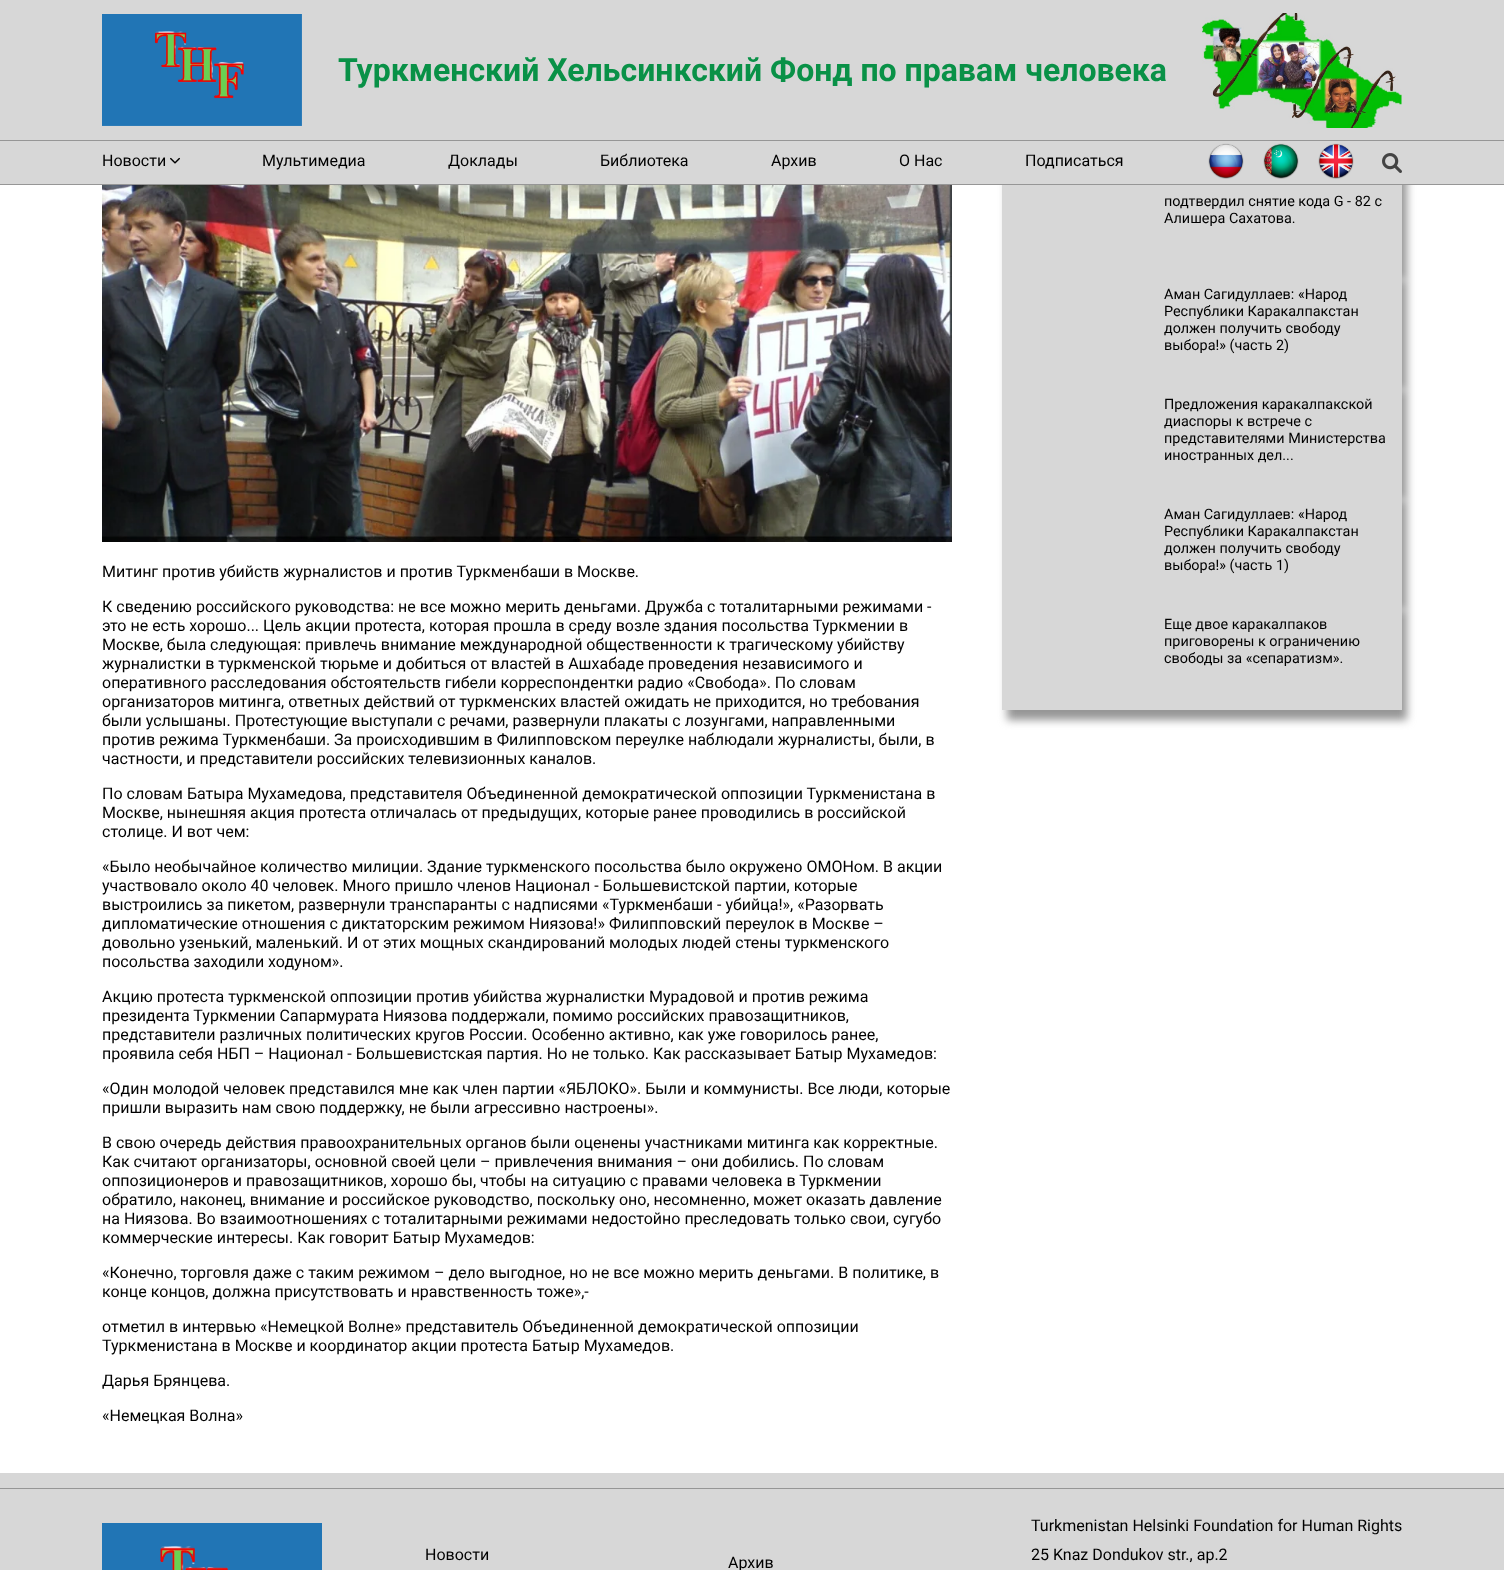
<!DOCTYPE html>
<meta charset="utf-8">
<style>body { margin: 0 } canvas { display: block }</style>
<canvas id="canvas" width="1504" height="1570"></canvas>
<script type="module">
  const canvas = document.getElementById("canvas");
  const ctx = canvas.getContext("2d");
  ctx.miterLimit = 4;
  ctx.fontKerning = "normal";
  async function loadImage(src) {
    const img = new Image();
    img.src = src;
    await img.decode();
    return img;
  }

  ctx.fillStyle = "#ffffff";
  ctx.fillRect(0, 0, 1504, 1570);
  ctx.fillStyle = "#d7d7d7";
  ctx.fillRect(0, 0, 1504, 140);
  ctx.drawImage(await loadImage("img1.png"), 102, 14, 200, 112);
  ctx.font = "bold 32px Roboto";
  ctx.fillStyle = "#099147";
  ctx.fillText("Туркменский Хельсинкский Фонд по правам человека", 338, 81);
  ctx.drawImage(await loadImage("img2.png"), 1202, 13, 200, 115);
  ctx.fillStyle = "#969696";
  ctx.filter = "blur(4px)";
  ctx.beginPath();
  ctx.rect(1007, 170, 400, 110);
  ctx.fill();
  ctx.filter = "none";
  ctx.fillStyle = "#d7d7d7";
  ctx.fillRect(0, 141, 1504, 43);
  ctx.fillStyle = "#969696";
  ctx.fillRect(0, 140, 1504, 1);
  ctx.fillRect(0, 184, 1504, 1);
  ctx.font = "16px Roboto";
  ctx.fillStyle = "#000000";
  ctx.fillText("Новости", 102, 166);
  ctx.drawImage(await loadImage("img3.png"), 170, 157, 10, 7);
  ctx.fillText("Мультимедиа", 262, 166);
  ctx.fillText("Доклады", 448, 166);
  ctx.fillText("Библиотека", 600, 166);
  ctx.fillText("Архив", 771, 166);
  ctx.fillText("О Нас", 899, 166);
  ctx.fillText("Подписаться", 1025, 166);
  ctx.drawImage(await loadImage("img4.png"), 1208, 143, 36, 36);
  ctx.drawImage(await loadImage("img5.png"), 1263, 143, 36, 36);
  ctx.drawImage(await loadImage("img6.png"), 1318, 143, 36, 36);
  ctx.drawImage(await loadImage("img7.png"), 1382, 153, 20, 20);
  ctx.fillStyle = "#d7d7d7";
  ctx.fillRect(1002, 185, 400, 85);
  ctx.font = "14.4px Roboto";
  ctx.fillStyle = "#000000";
  ctx.fillText("подтвердил снятие кода G - 82 с", 1164, 206);
  ctx.fillText("Алишера Сахатова.", 1164, 223);
  ctx.fillStyle = "#969696";
  ctx.filter = "blur(4px)";
  ctx.beginPath();
  ctx.rect(1007, 280, 400, 110);
  ctx.fill();
  ctx.filter = "none";
  ctx.fillStyle = "#d7d7d7";
  ctx.fillRect(1002, 270, 400, 110);
  ctx.fillStyle = "#000000";
  ctx.fillText("Аман Сагидуллаев: «Народ", 1164, 299);
  ctx.fillText("Республики Каракалпакстан", 1164, 316);
  ctx.fillText("должен получить свободу", 1164, 333);
  ctx.fillText("выбора!» (часть 2)", 1164, 350);
  ctx.fillStyle = "#969696";
  ctx.filter = "blur(4px)";
  ctx.beginPath();
  ctx.rect(1007, 390, 400, 110);
  ctx.fill();
  ctx.filter = "none";
  ctx.fillStyle = "#d7d7d7";
  ctx.fillRect(1002, 380, 400, 110);
  ctx.fillStyle = "#000000";
  ctx.fillText("Предложения каракалпакской", 1164, 409);
  ctx.fillText("диаспоры к встрече с", 1164, 426);
  ctx.fillText("представителями Министерства", 1164, 443);
  ctx.fillText("иностранных дел...", 1164, 460);
  ctx.fillStyle = "#969696";
  ctx.filter = "blur(4px)";
  ctx.beginPath();
  ctx.rect(1007, 500, 400, 110);
  ctx.fill();
  ctx.filter = "none";
  ctx.fillStyle = "#d7d7d7";
  ctx.fillRect(1002, 490, 400, 110);
  ctx.fillStyle = "#000000";
  ctx.fillText("Аман Сагидуллаев: «Народ", 1164, 519);
  ctx.fillText("Республики Каракалпакстан", 1164, 536);
  ctx.fillText("должен получить свободу", 1164, 553);
  ctx.fillText("выбора!» (часть 1)", 1164, 570);
  ctx.fillStyle = "#969696";
  ctx.filter = "blur(4px)";
  ctx.beginPath();
  ctx.rect(1007, 610, 400, 110);
  ctx.fill();
  ctx.filter = "none";
  ctx.fillStyle = "#d7d7d7";
  ctx.fillRect(1002, 600, 400, 110);
  ctx.fillStyle = "#000000";
  ctx.fillText("Еще двое каракалпаков", 1164, 629);
  ctx.fillText("приговорены к ограничению", 1164, 646);
  ctx.fillText("свободы за «сепаратизм».", 1164, 663);
  ctx.drawImage(await loadImage("img8.png"), 102, 185, 850, 357);
  ctx.font = "16px Roboto";
  ctx.fillText("Митинг против убийств журналистов и против Туркменбаши в Москве.", 102, 577);
  ctx.fillText("К сведению российского руководства: не все можно мерить деньгами. Дружба с тоталитарными режимами -", 102, 612);
  ctx.fillText("это не есть хорошо... Цель акции протеста, которая прошла в среду возле здания посольства Туркмении в", 102, 631);
  ctx.fillText("Москве, была следующая: привлечь внимание международной общественности к трагическому убийству", 102, 650);
  ctx.fillText("журналистки в туркменской тюрьме и добиться от властей в Ашхабаде проведения независимого и", 102, 669);
  ctx.fillText("оперативного расследования обстоятельств гибели корреспондентки радио «Свобода». По словам", 102, 688);
  ctx.fillText("организаторов митинга, ответных действий от туркменских властей ожидать не приходится, но требования", 102, 707);
  ctx.fillText("были услышаны. Протестующие выступали с речами, развернули плакаты с лозунгами, направленными", 102, 726);
  ctx.fillText("против режима Туркменбаши. За происходившим в Филипповском переулке наблюдали журналисты, были, в", 102, 745);
  ctx.fillText("частности, и представители российских телевизионных каналов.", 102, 764);
  ctx.fillText("По словам Батыра Мухамедова, представителя Объединенной демократической оппозиции Туркменистана в", 102, 799);
  ctx.fillText("Москве, нынешняя акция протеста отличалась от предыдущих, которые ранее проводились в российской", 102, 818);
  ctx.fillText("столице. И вот чем:", 102, 837);
  ctx.fillText("«Было необычайное количество милиции. Здание туркменского посольства было окружено ОМОНом. В акции", 102, 872);
  ctx.fillText("участвовало около 40 человек. Много пришло членов Национал - Большевистской партии, которые", 102, 891);
  ctx.fillText("выстроились за пикетом, развернули транспаранты с надписями «Туркменбаши - убийца!», «Разорвать", 102, 910);
  ctx.fillText("дипломатические отношения с диктаторским режимом Ниязова!» Филипповский переулок в Москве –", 102, 929);
  ctx.fillText("довольно узенький, маленький. И от этих мощных скандирований молодых людей стены туркменского", 102, 948);
  ctx.fillText("посольства заходили ходуном».", 102, 967);
  ctx.fillText("Акцию протеста туркменской оппозиции против убийства журналистки Мурадовой и против режима", 102, 1002);
  ctx.fillText("президента Туркмении Сапармурата Ниязова поддержали, помимо российских правозащитников,", 102, 1021);
  ctx.fillText("представители различных политических кругов России. Особенно активно, как уже говорилось ранее,", 102, 1040);
  ctx.fillText("проявила себя НБП – Национал - Большевистская партия. Но не только. Как рассказывает Батыр Мухамедов:", 102, 1059);
  ctx.fillText("«Один молодой человек представился мне как член партии «ЯБЛОКО». Были и коммунисты. Все люди, которые", 102, 1094);
  ctx.fillText("пришли выразить нам свою поддержку, не были агрессивно настроены».", 102, 1113);
  ctx.fillText("В свою очередь действия правоохранительных органов были оценены участниками митинга как корректные.", 102, 1148);
  ctx.fillText("Как считают организаторы, основной своей цели – привлечения внимания – они добились. По словам", 102, 1167);
  ctx.fillText("оппозиционеров и правозащитников, хорошо бы, чтобы на ситуацию с правами человека в Туркмении", 102, 1186);
  ctx.fillText("обратило, наконец, внимание и российское руководство, поскольку оно, несомненно, может оказать давление", 102, 1205);
  ctx.fillText("на Ниязова. Во взаимоотношениях с тоталитарными режимами недостойно преследовать только свои, сугубо", 102, 1224);
  ctx.fillText("коммерческие интересы. Как говорит Батыр Мухамедов:", 102, 1243);
  ctx.fillText("«Конечно, торговля даже с таким режимом – дело выгодное, но не все можно мерить деньгами. В политике, в", 102, 1278);
  ctx.fillText("конце концов, должна присутствовать и нравственность тоже»,-", 102, 1297);
  ctx.fillText("отметил в интервью «Немецкой Волне» представитель Объединенной демократической оппозиции", 102, 1332);
  ctx.fillText("Туркменистана в Москве и координатор акции протеста Батыр Мухамедов.", 102, 1351);
  ctx.fillText("Дарья Брянцева.", 102, 1386);
  ctx.fillText("«Немецкая Волна»", 102, 1421);
  ctx.fillStyle = "#d7d7d7";
  ctx.fillRect(0, 1473, 1504, 97);
  ctx.fillStyle = "#969696";
  ctx.fillRect(0, 1488, 1504, 1);
  ctx.drawImage(await loadImage("img9.png"), 102, 1523, 220, 47);
  ctx.fillStyle = "#000000";
  ctx.fillText("Новости", 425, 1560);
  ctx.fillText("Turkmenistan Helsinki Foundation for Human Rights", 1031, 1531);
  ctx.fillText("25 Knaz Dondukov str., ap.2", 1031, 1560);
  ctx.fillText("Архив", 728, 1568);
</script>
